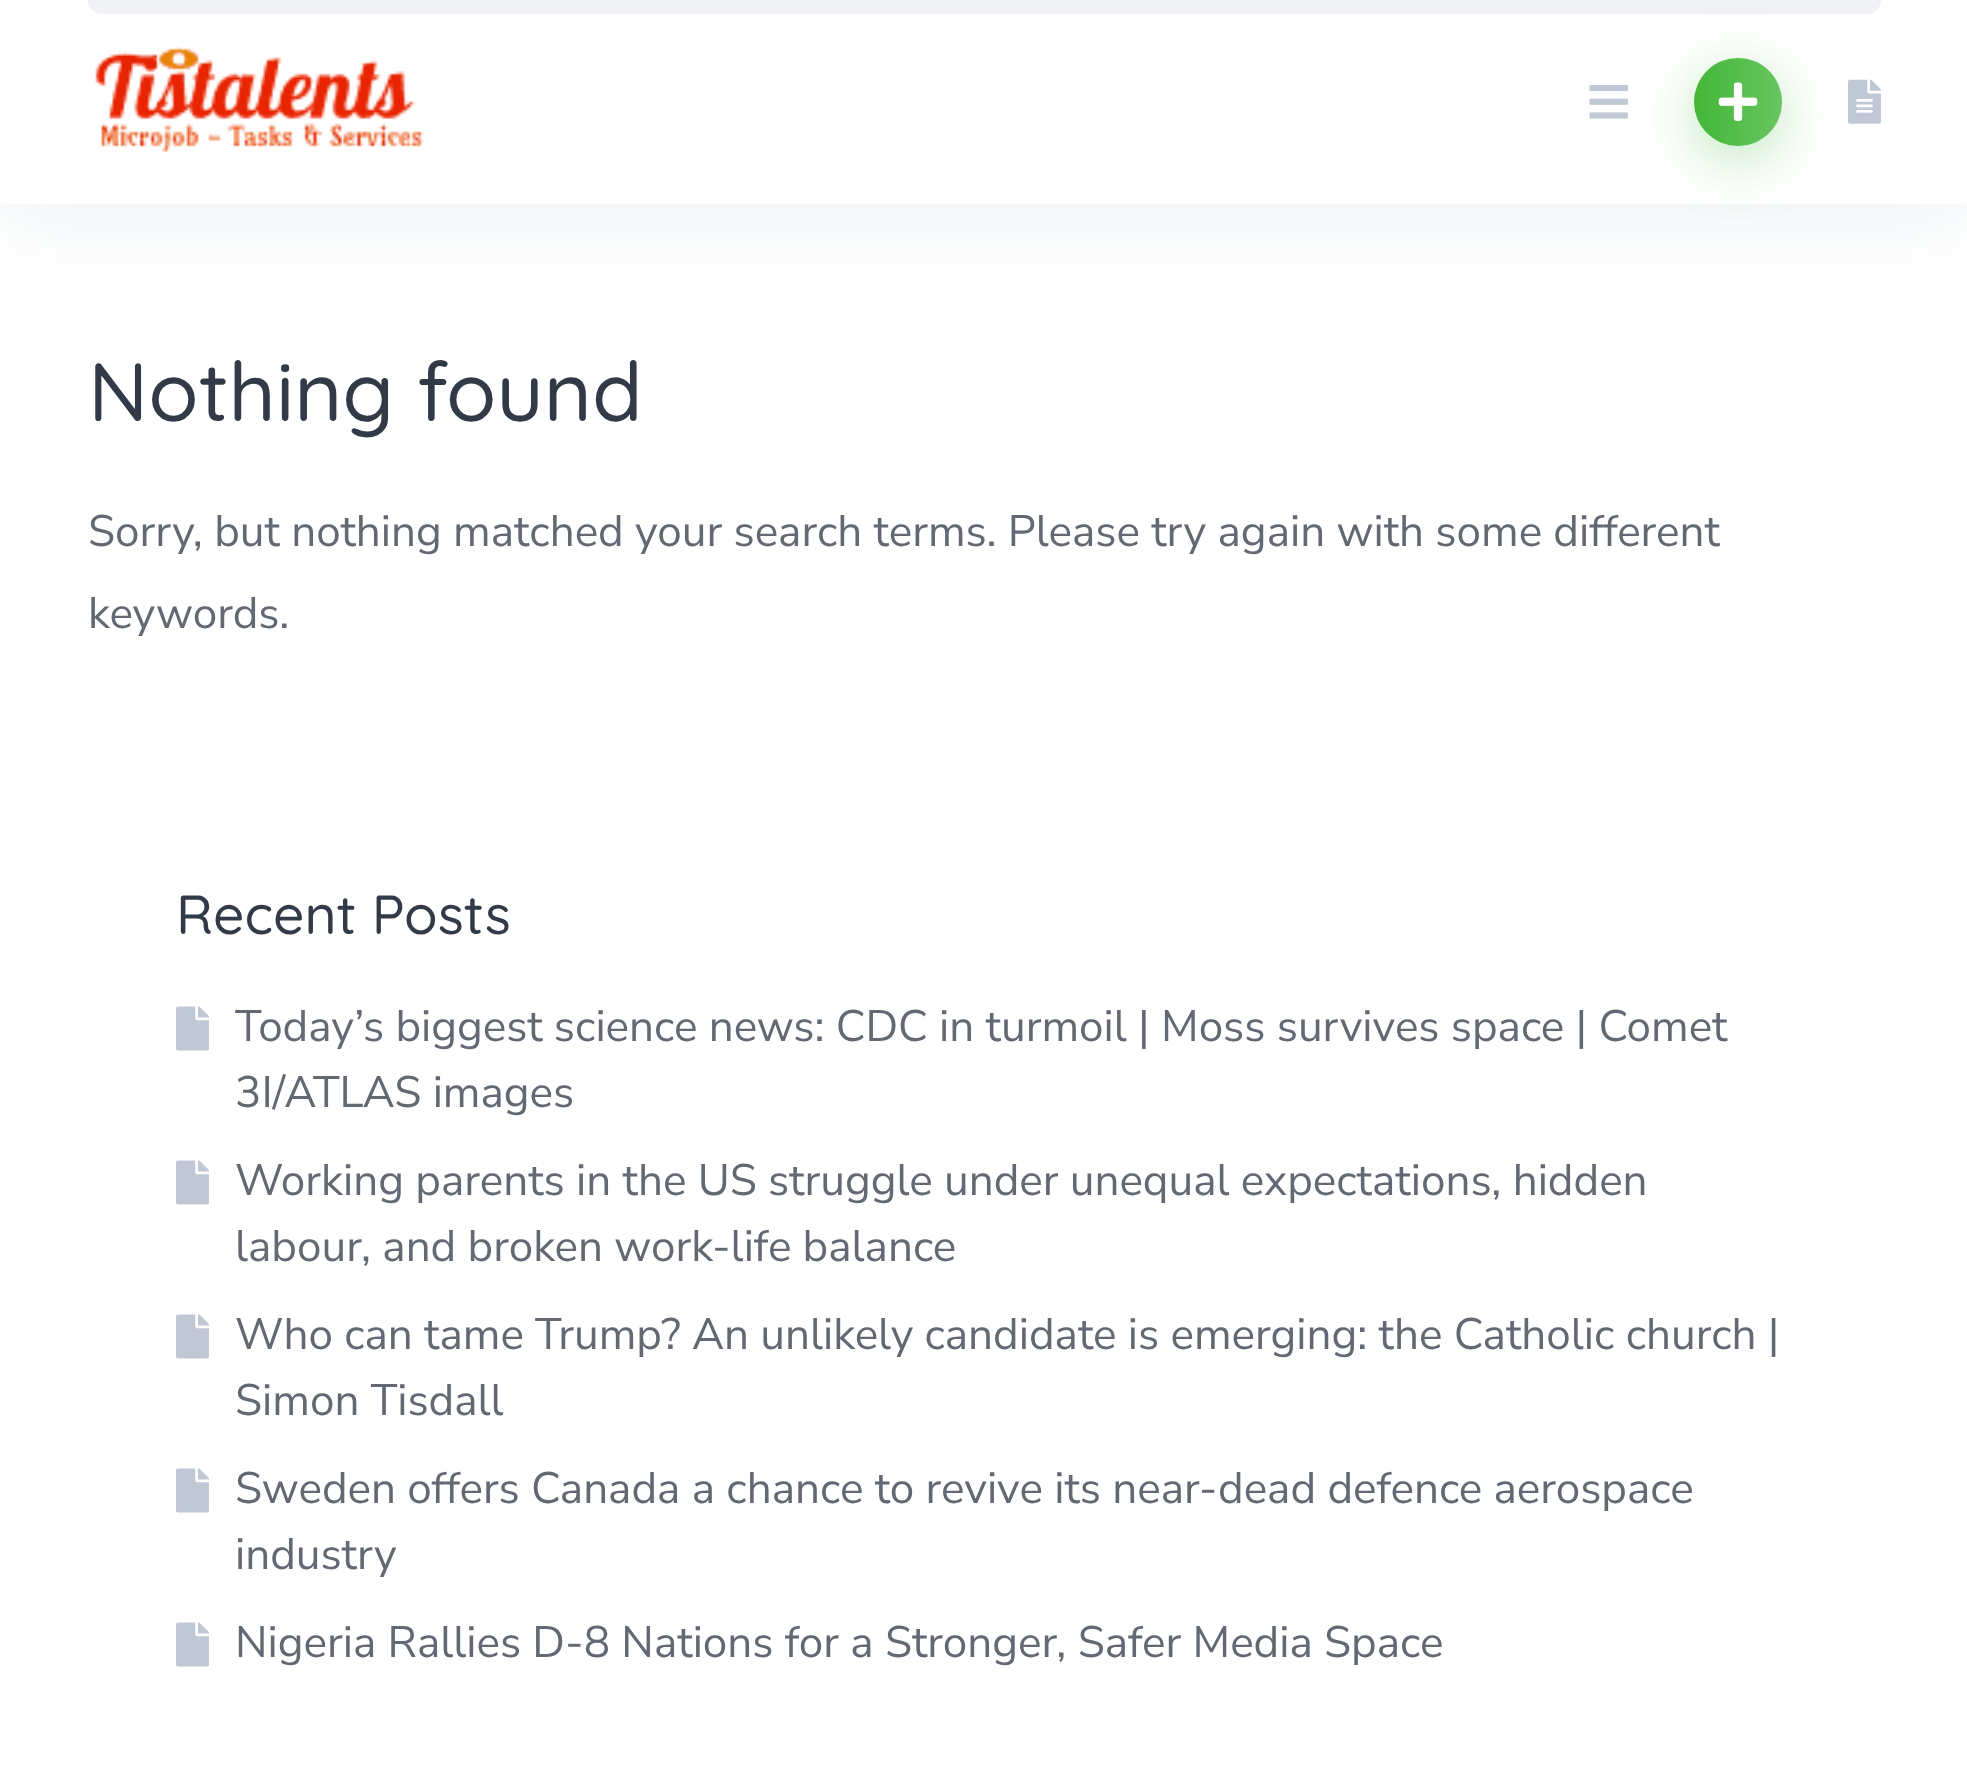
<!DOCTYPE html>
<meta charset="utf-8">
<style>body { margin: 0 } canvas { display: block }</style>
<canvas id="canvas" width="1967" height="1788"></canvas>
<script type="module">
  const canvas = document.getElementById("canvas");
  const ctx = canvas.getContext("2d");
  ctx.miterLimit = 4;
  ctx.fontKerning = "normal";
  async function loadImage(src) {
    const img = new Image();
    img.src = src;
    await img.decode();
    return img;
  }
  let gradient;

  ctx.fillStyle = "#ffffff";
  ctx.fillRect(0, 0, 1967, 1788);
  ctx.fillStyle = "rgba(7, 36, 86, 0.07)";
  ctx.filter = "blur(41px)";
  ctx.beginPath();
  ctx.rect(0, 14, 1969, 203);
  ctx.fill();
  ctx.filter = "none";
  ctx.fillStyle = "#ffffff";
  ctx.fillRect(0, 0, 1967, 204);
  ctx.fillStyle = "#f0f2f5";
  ctx.beginPath();
  ctx.roundRect(88, 0, 1793, 14, [0, 0, 14, 14]);
  ctx.fill();
  ctx.drawImage(await loadImage("img1.png"), 95, 46, 329, 107);
  ctx.drawImage(await loadImage("img3.png"), 1848, 79, 33, 45);
  ctx.drawImage(await loadImage("img4.png"), 1589, 85, 39, 34);
  ctx.fillStyle = "rgba(67, 183, 56, 0.35)";
  ctx.filter = "blur(29px)";
  ctx.beginPath();
  ctx.roundRect(1694, 72, 88, 88, 44);
  ctx.fill();
  ctx.filter = "none";
  ctx.fillStyle = "#43b738";
  ctx.beginPath();
  ctx.arc(1738, 102, 44, 0, Math.PI * 2);
  ctx.fill();
  gradient = ctx.createLinearGradient(1694, 102, 1782, 102);
  gradient.addColorStop(0, "rgba(255, 255, 255, 0)");
  gradient.addColorStop(1, "rgba(255, 255, 255, 0.2)");
  ctx.fillStyle = gradient;
  ctx.beginPath();
  ctx.arc(1738, 102, 44, 0, Math.PI * 2);
  ctx.fill();
  ctx.drawImage(await loadImage("img2.png"), 1718, 82, 40, 39);
  ctx.font = "300 82.5px Quicksand";
  ctx.fillStyle = "#333a47";
  ctx.fillText("Nothing found", 88, 421);
  ctx.font = "44px Nunito Sans";
  ctx.fillStyle = "#636873";
  ctx.fillText("Sorry, but nothing matched your search terms. Please try again with some different", 88, 546);
  ctx.fillText("keywords.", 88, 628);
  ctx.font = "300 55px Quicksand";
  ctx.fillStyle = "#333a47";
  ctx.fillText("Recent Posts", 176, 934);
  ctx.drawImage(await loadImage("img5.png"), 176, 1006, 33, 45);
  ctx.font = "44px Nunito Sans";
  ctx.fillStyle = "#636873";
  ctx.fillText("Today’s biggest science news: CDC in turmoil | Moss survives space | Comet", 235, 1041);
  ctx.fillText("3I/ATLAS images", 235, 1107);
  ctx.drawImage(await loadImage("img5.png"), 176, 1160, 33, 45);
  ctx.fillText("Working parents in the US struggle under unequal expectations, hidden", 235, 1195);
  ctx.fillText("labour, and broken work-life balance", 235, 1261);
  ctx.drawImage(await loadImage("img5.png"), 176, 1314, 33, 45);
  ctx.fillText("Who can tame Trump? An unlikely candidate is emerging: the Catholic church |", 235, 1349);
  ctx.fillText("Simon Tisdall", 235, 1415);
  ctx.drawImage(await loadImage("img5.png"), 176, 1468, 33, 45);
  ctx.fillText("Sweden offers Canada a chance to revive its near-dead defence aerospace", 235, 1503);
  ctx.fillText("industry", 235, 1569);
  ctx.drawImage(await loadImage("img5.png"), 176, 1622, 33, 45);
  ctx.fillText("Nigeria Rallies D-8 Nations for a Stronger, Safer Media Space", 235, 1657);
</script>
